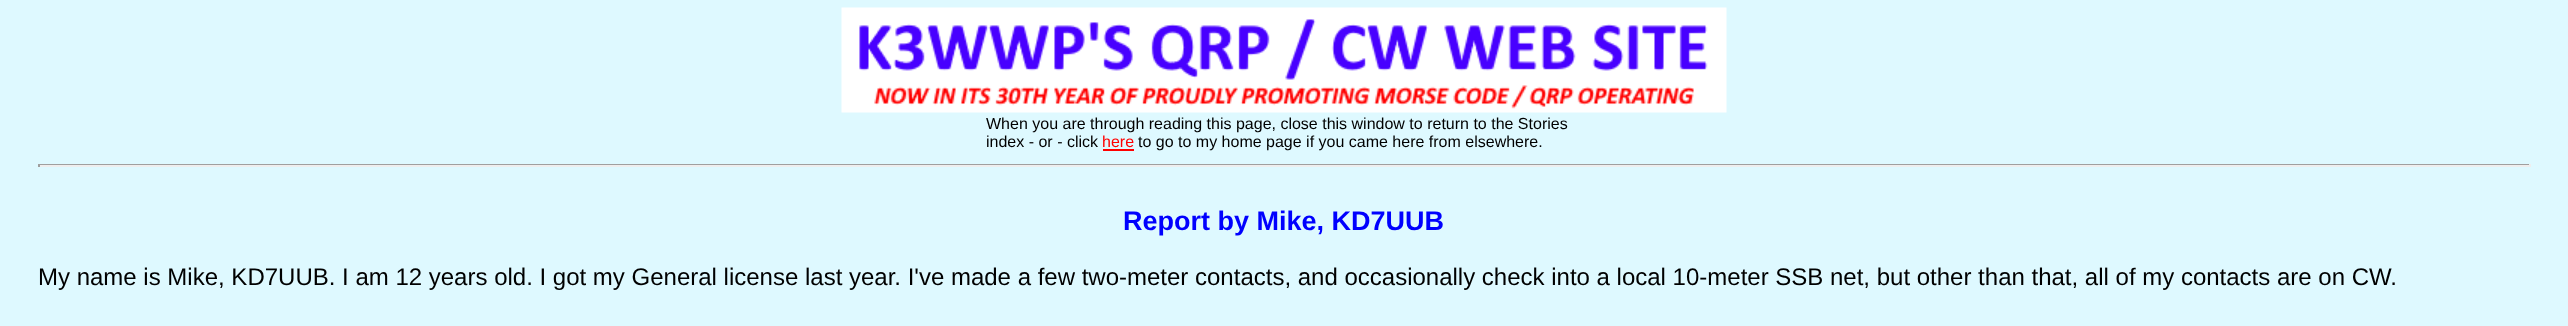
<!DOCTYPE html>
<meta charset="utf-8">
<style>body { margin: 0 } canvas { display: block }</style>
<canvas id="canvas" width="2568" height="326"></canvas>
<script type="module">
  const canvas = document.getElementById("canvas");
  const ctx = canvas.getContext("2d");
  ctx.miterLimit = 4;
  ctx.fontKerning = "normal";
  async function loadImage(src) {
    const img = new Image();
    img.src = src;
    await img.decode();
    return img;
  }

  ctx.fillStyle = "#def9ff";
  ctx.fillRect(0, 0, 2568, 326);
  ctx.drawImage(await loadImage("img1.png"), 841, 7, 886, 106);
  ctx.font = "16px Liberation Sans";
  ctx.fillStyle = "#000000";
  ctx.fillText("When you are through reading this page, close this window to return to the Stories", 986, 129);
  ctx.fillText("index - or - click", 986, 147);
  ctx.fillStyle = "#ff0000";
  ctx.fillText("here", 1102, 147);
  ctx.fillRect(1103, 149, 31, 2);
  ctx.fillStyle = "#000000";
  ctx.fillText("to go to my home page if you came here from elsewhere.", 1138, 147);
  ctx.fillStyle = "#9f9f9f";
  ctx.fillRect(38, 164, 2493, 1);
  ctx.fillStyle = "#eeeeee";
  ctx.fillRect(2529, 164, 2, 3);
  ctx.fillRect(38, 165, 2493, 2);
  ctx.fillStyle = "#9f9f9f";
  ctx.fillRect(38, 164, 2, 3);
  ctx.font = "bold 27px Liberation Sans";
  ctx.fillStyle = "#0000ff";
  ctx.fillText("Report by Mike, KD7UUB", 1123, 230);
  ctx.font = "24px Liberation Sans";
  ctx.fillStyle = "#000000";
  ctx.fillText("My name is Mike, KD7UUB. I am 12 years old. I got my General license last year. I've made a few two-meter contacts, and occasionally check into a local 10-meter SSB net, but other than that, all of my contacts are on CW.", 38, 285);
</script>
